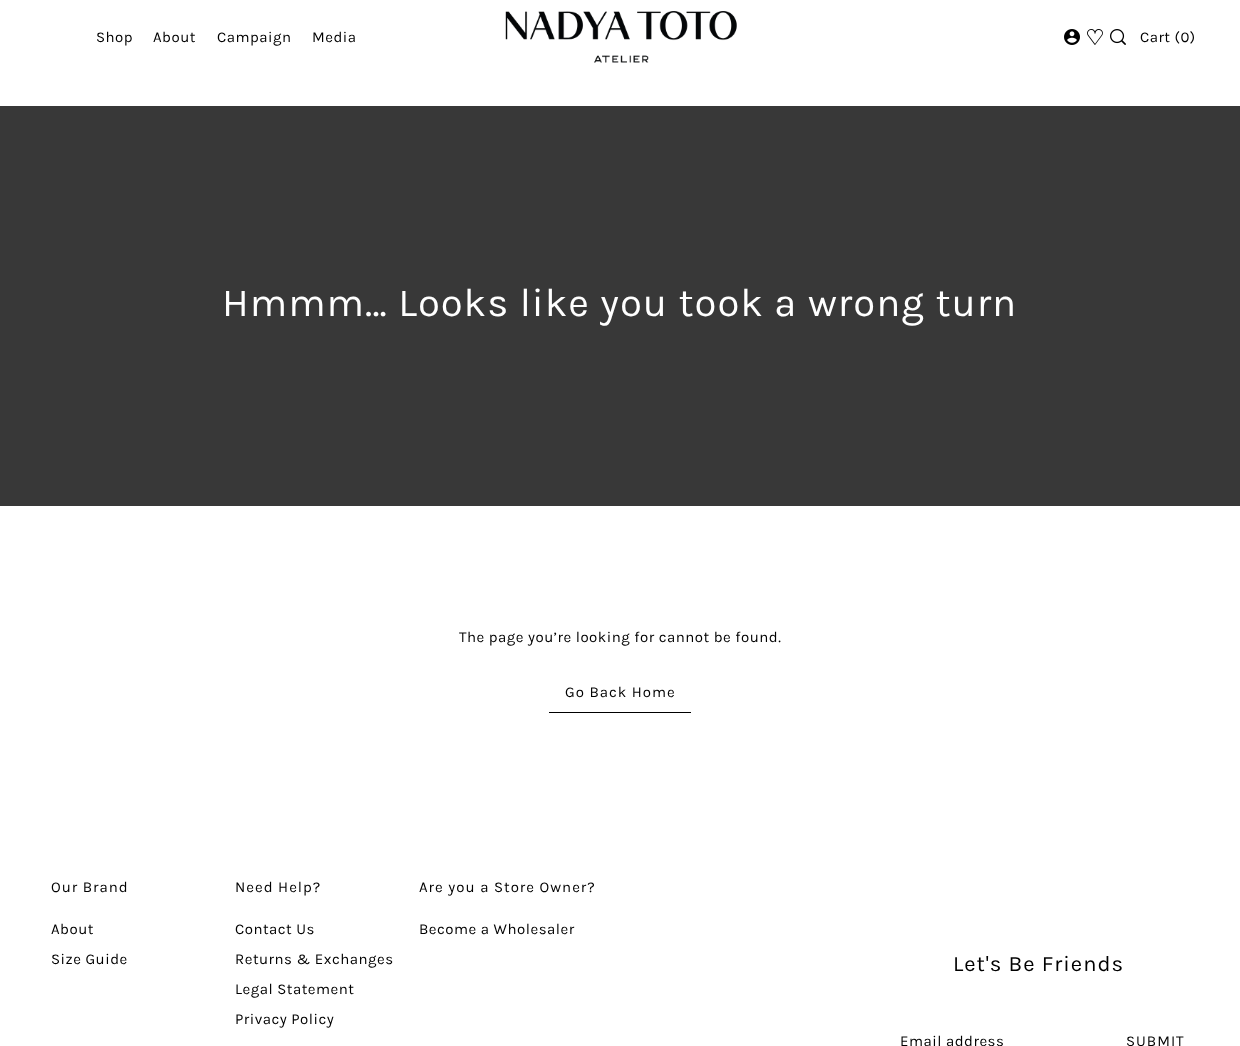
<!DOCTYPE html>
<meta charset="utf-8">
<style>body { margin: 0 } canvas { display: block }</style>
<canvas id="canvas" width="1240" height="1046"></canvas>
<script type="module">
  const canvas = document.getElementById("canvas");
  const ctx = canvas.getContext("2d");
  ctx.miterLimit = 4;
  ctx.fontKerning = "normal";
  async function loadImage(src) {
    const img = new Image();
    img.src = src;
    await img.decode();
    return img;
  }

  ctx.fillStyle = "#ffffff";
  ctx.fillRect(0, 0, 1240, 1046);
  ctx.letterSpacing = "0.5px";
  ctx.font = "15px Karla";
  ctx.fillStyle = "#000000";
  ctx.fillText("Shop", 96, 42);
  ctx.fillText("About", 153, 42);
  ctx.fillText("Campaign", 217, 42);
  ctx.fillText("Media", 312, 42);
  ctx.drawImage(await loadImage("img1.png"), 505, 11, 232, 52);
  ctx.drawImage(await loadImage("img2.png"), 1064, 29, 16, 16);
  ctx.drawImage(await loadImage("img3.png"), 1087, 29, 16, 16);
  ctx.drawImage(await loadImage("img4.png"), 1110, 29, 16, 16);
  ctx.fillText("Cart (0)", 1140, 42);
  ctx.fillStyle = "#383838";
  ctx.fillRect(0, 106, 1240, 400);
  ctx.letterSpacing = "1px";
  ctx.font = "40px Karla";
  ctx.fillStyle = "#ffffff";
  ctx.fillText("Hmmm… Looks like you took a wrong turn", 222, 316);
  ctx.letterSpacing = "0.5px";
  ctx.font = "15px Karla";
  ctx.fillStyle = "#000000";
  ctx.fillText("The page you’re looking for cannot be found.", 459, 642);
  ctx.letterSpacing = "1px";
  ctx.fillText("Go Back Home", 565, 697);
  ctx.fillRect(549, 712, 142, 1);
  ctx.fillText("Our Brand", 51, 892);
  ctx.letterSpacing = "0.5px";
  ctx.fillText("About", 51, 934);
  ctx.fillText("Size Guide", 51, 964);
  ctx.letterSpacing = "1px";
  ctx.fillText("Need Help?", 235, 892);
  ctx.letterSpacing = "0.5px";
  ctx.fillText("Contact Us", 235, 934);
  ctx.fillText("Returns & Exchanges", 235, 964);
  ctx.fillText("Legal Statement", 235, 994);
  ctx.fillText("Privacy Policy", 235, 1024);
  ctx.letterSpacing = "1px";
  ctx.fillText("Are you a Store Owner?", 419, 892);
  ctx.letterSpacing = "0.5px";
  ctx.fillText("Become a Wholesaler", 419, 934);
  ctx.letterSpacing = "1px";
  ctx.font = "22px Karla";
  ctx.fillText("Let's Be Friends", 953, 971);
  ctx.letterSpacing = "0.5px";
  ctx.font = "15px Karla";
  ctx.fillText("Email address", 900, 1046);
  ctx.letterSpacing = "1px";
  ctx.fillText("SUBMIT", 1126, 1046);
</script>
